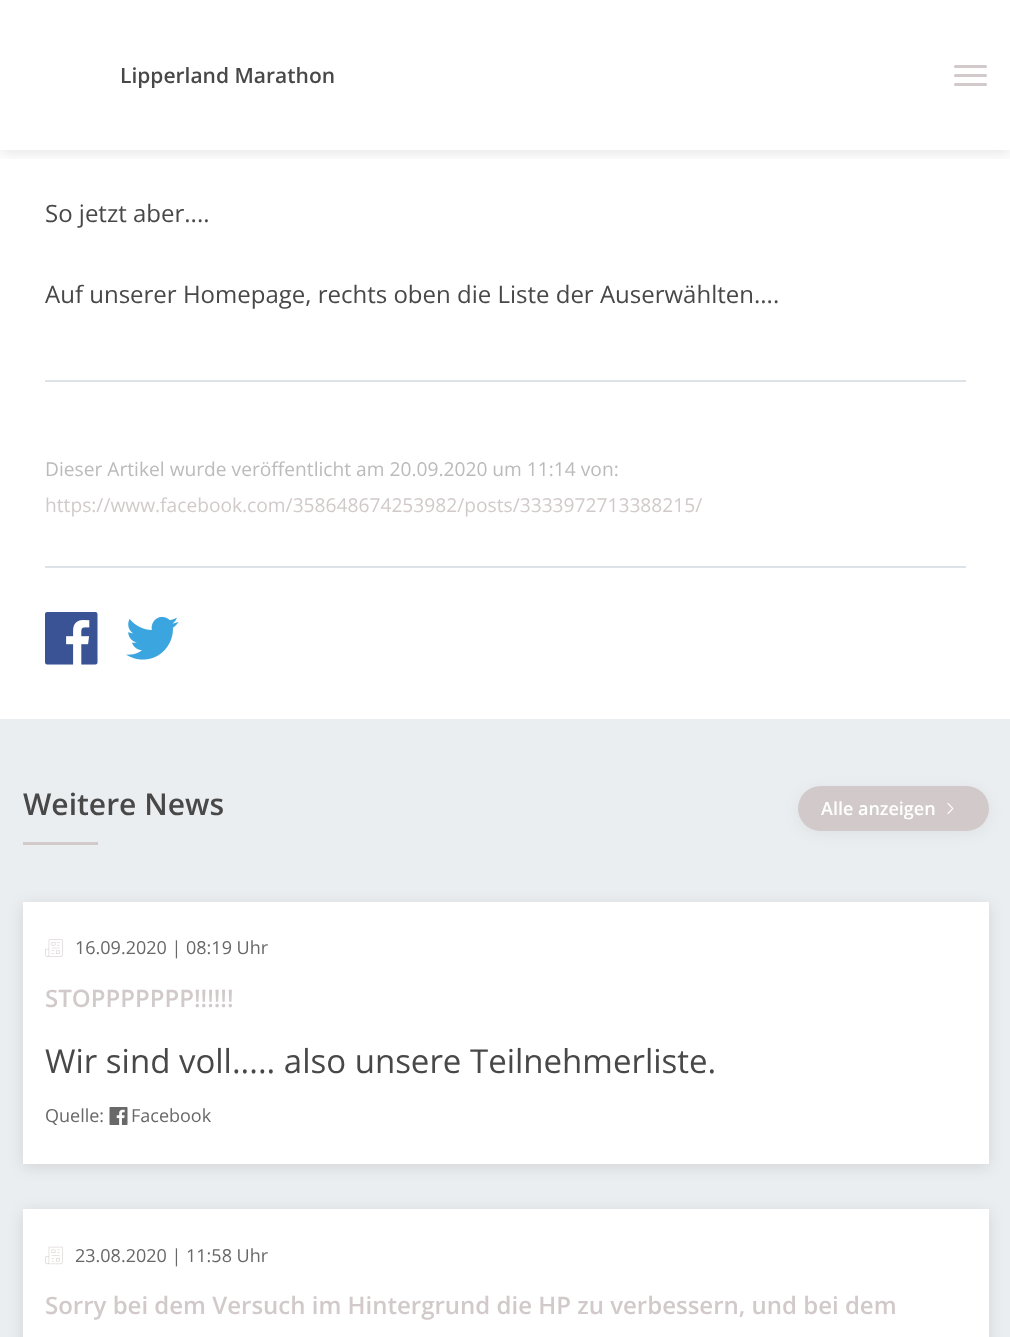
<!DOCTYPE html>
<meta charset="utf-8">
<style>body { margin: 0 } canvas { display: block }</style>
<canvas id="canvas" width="1010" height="1337"></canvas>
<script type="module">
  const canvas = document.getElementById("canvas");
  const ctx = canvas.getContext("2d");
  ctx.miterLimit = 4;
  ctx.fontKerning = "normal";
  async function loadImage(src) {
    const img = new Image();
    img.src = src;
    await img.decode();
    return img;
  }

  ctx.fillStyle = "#ffffff";
  ctx.fillRect(0, 0, 1010, 1337);
  ctx.save();
  ctx.beginPath();
  ctx.rect(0, 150, 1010, 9);
  ctx.clip();
  ctx.fillStyle = "rgba(0, 0, 0, 0.1)";
  ctx.filter = "blur(7.5px)";
  ctx.beginPath();
  ctx.rect(0, 3, 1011, 150);
  ctx.fill();
  ctx.filter = "none";
  ctx.restore();
  ctx.font = "600 21px Open Sans";
  ctx.fillStyle = "#484848";
  ctx.fillText("Lipperland Marathon", 120, 83);
  ctx.fillStyle = "#d2caca";
  ctx.beginPath();
  ctx.roundRect(954, 65, 33, 3, 1.5);
  ctx.fill();
  ctx.beginPath();
  ctx.roundRect(954, 74, 33, 3, 1.5);
  ctx.fill();
  ctx.beginPath();
  ctx.roundRect(954, 83, 33, 3, 1.5);
  ctx.fill();
  ctx.font = "24px Open Sans";
  ctx.fillStyle = "#484848";
  ctx.fillText("So jetzt aber....", 45, 222);
  ctx.fillText("Auf unserer Homepage, rechts oben die Liste der Auserwählten....", 45, 303);
  ctx.fillStyle = "#dce2e6";
  ctx.fillRect(45, 380, 921, 2);
  ctx.fillRect(45, 566, 921, 2);
  ctx.font = "19.2px Open Sans";
  ctx.fillStyle = "#bbbbbb";
  ctx.fillText("Dieser Artikel wurde veröffentlicht am 20.09.2020 um 11:14 von:", 45, 476);
  ctx.fillStyle = "#d2caca";
  ctx.fillText("https://www.facebook.com/358648674253982/posts/3333972713388215/", 45, 512);
  ctx.drawImage(await loadImage("img1.png"), 45, 612, 53, 53);
  ctx.drawImage(await loadImage("img2.png"), 126, 616, 53, 44);
  ctx.fillStyle = "#ebeef0";
  ctx.fillRect(0, 719, 1010, 618);
  ctx.font = "600 30px Open Sans";
  ctx.fillStyle = "#484848";
  ctx.fillText("Weitere News", 23, 815);
  ctx.fillStyle = "#d2caca";
  ctx.fillRect(23, 842, 75, 3);
  ctx.fillStyle = "rgba(0, 0, 0, 0.05)";
  ctx.filter = "blur(7.5px)";
  ctx.beginPath();
  ctx.roundRect(798, 789, 191, 45, 22.5);
  ctx.fill();
  ctx.filter = "none";
  ctx.fillStyle = "#d2caca";
  ctx.beginPath();
  ctx.roundRect(798, 786, 191, 45, 22.5);
  ctx.fill();
  ctx.font = "600 18px Open Sans";
  ctx.fillStyle = "#ffffff";
  ctx.fillText("Alle anzeigen", 821, 815);
  ctx.drawImage(await loadImage("img3.png"), 947, 803, 7, 11);
  ctx.fillStyle = "rgba(0, 0, 0, 0.1)";
  ctx.filter = "blur(7.5px)";
  ctx.beginPath();
  ctx.rect(23, 905, 966, 262);
  ctx.fill();
  ctx.filter = "none";
  ctx.fillStyle = "#ffffff";
  ctx.fillRect(23, 902, 966, 262);
  ctx.drawImage(await loadImage("img4.png"), 45, 939, 18, 18);
  ctx.font = "18px Open Sans";
  ctx.fillStyle = "#686868";
  ctx.fillText("16.09.2020 | 08:19 Uhr", 75, 954);
  ctx.font = "600 24px Open Sans";
  ctx.fillStyle = "#d2caca";
  ctx.fillText("STOPPPPPPP!!!!!!", 45, 1007);
  ctx.font = "33px Open Sans";
  ctx.fillStyle = "#484848";
  ctx.fillText("Wir sind voll..... also unsere Teilnehmerliste.", 45, 1073);
  ctx.font = "18px Open Sans";
  ctx.fillStyle = "#686868";
  ctx.fillText("Quelle:", 45, 1122);
  ctx.drawImage(await loadImage("img5.png"), 109, 1107, 19, 18);
  ctx.fillText("Facebook", 131, 1122);
  ctx.fillStyle = "rgba(0, 0, 0, 0.1)";
  ctx.filter = "blur(7.5px)";
  ctx.beginPath();
  ctx.rect(23, 1212, 966, 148);
  ctx.fill();
  ctx.filter = "none";
  ctx.fillStyle = "#ffffff";
  ctx.fillRect(23, 1209, 966, 128);
  ctx.drawImage(await loadImage("img6.png"), 45, 1246, 18, 19);
  ctx.fillStyle = "#686868";
  ctx.fillText("23.08.2020 | 11:58 Uhr", 75, 1262);
  ctx.font = "600 24px Open Sans";
  ctx.fillStyle = "#d2caca";
  ctx.fillText("Sorry bei dem Versuch im Hintergrund die HP zu verbessern, und bei dem", 45, 1314);
</script>
